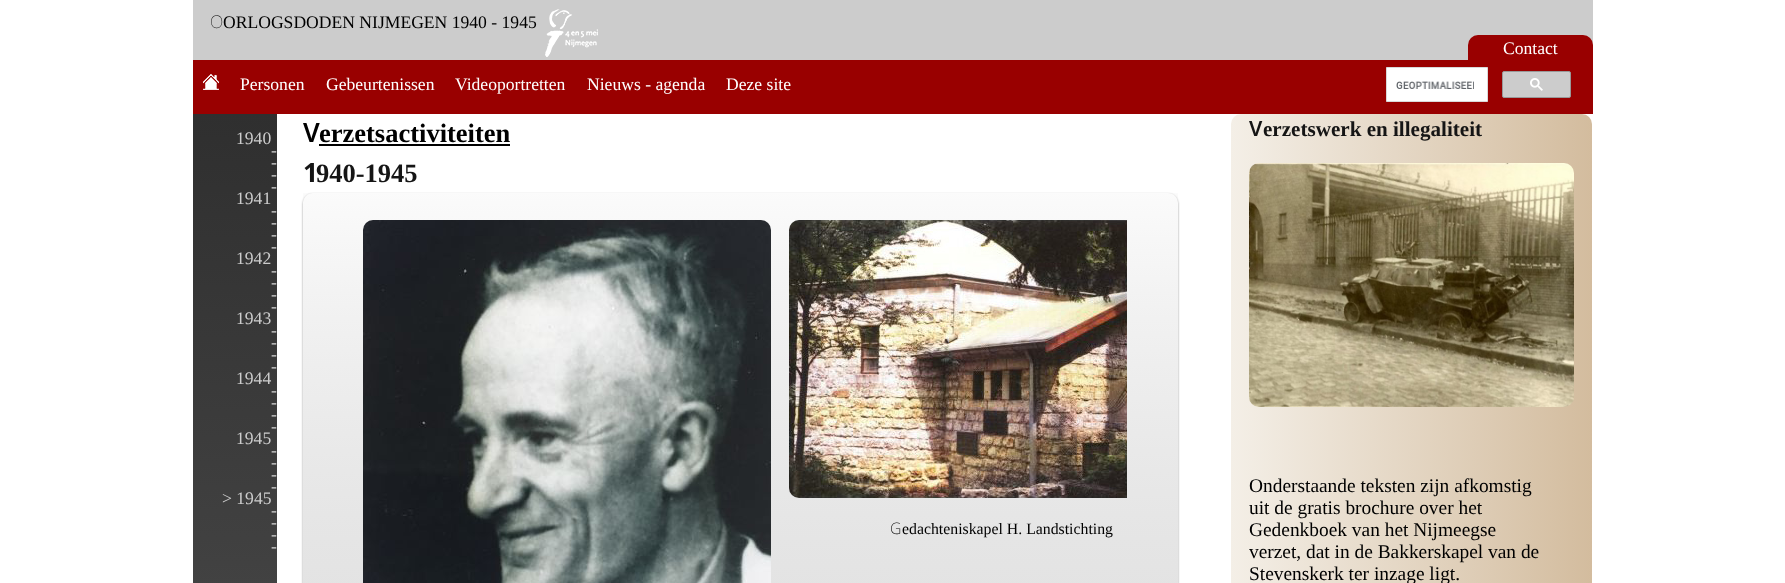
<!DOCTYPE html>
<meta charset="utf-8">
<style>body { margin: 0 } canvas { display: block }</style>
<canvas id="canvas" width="1785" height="583"></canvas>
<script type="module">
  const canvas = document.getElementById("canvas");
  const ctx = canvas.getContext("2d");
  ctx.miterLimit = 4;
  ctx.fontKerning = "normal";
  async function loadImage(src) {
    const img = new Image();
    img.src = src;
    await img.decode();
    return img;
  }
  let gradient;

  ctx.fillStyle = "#ffffff";
  ctx.fillRect(0, 0, 1785, 583);
  ctx.fillStyle = "#990000";
  ctx.fillRect(193, 60, 1400, 54);
  ctx.fillStyle = "#cccccc";
  ctx.fillRect(193, 0, 1400, 60);
  ctx.font = "100 17.6px Noto Sans";
  ctx.fillStyle = "#000000";
  ctx.fillText("O", 210, 28);
  ctx.font = "17.6px Liberation Serif";
  ctx.fillText("ORLOGSDODEN NIJMEGEN 1940 - 1945", 223, 28);
  ctx.drawImage(await loadImage("img1.png"), 545, 9, 53, 48);
  ctx.fillStyle = "#990000";
  ctx.beginPath();
  ctx.roundRect(1468, 35, 125, 25, [10, 10, 0, 0]);
  ctx.fill();
  ctx.fillStyle = "#ffffff";
  ctx.fillText("Contact", 1503, 54);
  ctx.drawImage(await loadImage("img2.png"), 203, 74, 16, 16);
  ctx.fillText("Personen", 240, 90);
  ctx.fillText("Gebeurtenissen", 326, 90);
  ctx.fillText("Videoportretten", 455, 90);
  ctx.fillText("Nieuws - agenda", 587, 90);
  ctx.fillText("Deze site", 726, 90);
  ctx.beginPath();
  ctx.rect(1386.5, 67.5, 101, 34);
  ctx.fill();
  ctx.strokeStyle = "#d9d9d9";
  ctx.stroke();
  ctx.drawImage(await loadImage("img3.png"), 1396, 81, 78, 8);
  ctx.fillStyle = "#cccccc";
  ctx.beginPath();
  ctx.roundRect(1502.5, 71.5, 68, 26, 1.5);
  ctx.fill();
  ctx.strokeStyle = "#999999";
  ctx.stroke();
  ctx.drawImage(await loadImage("img4.png"), 1530, 78, 13, 13);
  gradient = ctx.createLinearGradient(235, 114, 235, 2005);
  gradient.addColorStop(0, "#2f2f2f");
  gradient.addColorStop(1, "#7b7b7b");
  ctx.fillStyle = gradient;
  ctx.fillRect(193, 114, 84, 469);
  ctx.fillStyle = "#cccccc";
  ctx.fillText("1940", 236, 144);
  ctx.fillText("-", 271, 156);
  ctx.fillText("-", 271, 168);
  ctx.fillText("-", 271, 180);
  ctx.fillText("-", 271, 192);
  ctx.fillText("1941", 236, 204);
  ctx.fillText("-", 271, 216);
  ctx.fillText("-", 271, 228);
  ctx.fillText("-", 271, 240);
  ctx.fillText("-", 271, 252);
  ctx.fillText("1942", 236, 264);
  ctx.fillText("-", 271, 276);
  ctx.fillText("-", 271, 288);
  ctx.fillText("-", 271, 300);
  ctx.fillText("-", 271, 312);
  ctx.fillText("1943", 236, 324);
  ctx.fillText("-", 271, 336);
  ctx.fillText("-", 271, 348);
  ctx.fillText("-", 271, 360);
  ctx.fillText("-", 271, 372);
  ctx.fillText("1944", 236, 384);
  ctx.fillText("-", 271, 396);
  ctx.fillText("-", 271, 408);
  ctx.fillText("-", 271, 420);
  ctx.fillText("-", 271, 432);
  ctx.fillText("1945", 236, 444);
  ctx.fillText("-", 271, 456);
  ctx.fillText("-", 271, 468);
  ctx.fillText("-", 271, 480);
  ctx.fillText("-", 271, 492);
  ctx.fillText("> 1945", 222, 504);
  ctx.fillText("-", 271, 516);
  ctx.fillText("-", 271, 528);
  ctx.fillText("-", 271, 540);
  ctx.fillText("-", 271, 552);
  ctx.font = "600 26.5px Noto Sans";
  ctx.fillStyle = "#000000";
  ctx.fillText("V", 303, 142);
  ctx.font = "bold 26.5px Liberation Serif";
  ctx.fillText("erzetsactiviteiten", 319, 142);
  ctx.fillRect(319, 144, 191, 2);
  ctx.font = "bold 26.5px Noto Sans";
  ctx.fillStyle = "#151515";
  ctx.fillText("1", 303, 182);
  ctx.font = "bold 26.5px Liberation Serif";
  ctx.fillText("940-1945", 316, 182);
  ctx.save();
  ctx.beginPath();
  ctx.moveTo(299, 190);
  ctx.lineTo(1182, 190);
  ctx.lineTo(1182, 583);
  ctx.lineTo(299, 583);
  ctx.closePath();
  ctx.moveTo(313, 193);
  ctx.lineTo(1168, 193);
  ctx.bezierCurveTo(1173.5, 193, 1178, 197.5, 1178, 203);
  ctx.lineTo(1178, 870);
  ctx.bezierCurveTo(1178, 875.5, 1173.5, 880, 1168, 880);
  ctx.lineTo(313, 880);
  ctx.bezierCurveTo(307.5, 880, 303, 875.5, 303, 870);
  ctx.lineTo(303, 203);
  ctx.bezierCurveTo(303, 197.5, 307.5, 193, 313, 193);
  ctx.closePath();
  ctx.clip("evenodd");
  ctx.fillStyle = "#999999";
  ctx.filter = "blur(1px)";
  ctx.beginPath();
  ctx.roundRect(303, 194, 875, 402, 10);
  ctx.fill();
  ctx.filter = "none";
  ctx.restore();
  gradient = ctx.createLinearGradient(741, 193, 741, 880);
  gradient.addColorStop(0, "rgba(174, 174, 174, 0.05)");
  gradient.addColorStop(1, "rgba(216, 216, 216, 0.81)");
  ctx.fillStyle = gradient;
  ctx.fillRect(303, 193, 875, 390);
  ctx.drawImage(await loadImage("img5.png"), 363, 220, 408, 363);
  ctx.drawImage(await loadImage("img6.png"), 789, 220, 338, 278);
  ctx.font = "200 15.8px Noto Sans";
  ctx.fillStyle = "#000000";
  ctx.fillText("G", 890, 534);
  ctx.font = "15.8px Liberation Serif";
  ctx.fillText("edachteniskapel H. Landstichting", 902, 534);
  gradient = ctx.createLinearGradient(1231, 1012, 1592, 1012);
  gradient.addColorStop(0, "#f4efe7");
  gradient.addColorStop(1, "#d3bc9e");
  ctx.fillStyle = gradient;
  ctx.beginPath();
  ctx.roundRect(1231, 114, 361, 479, 10);
  ctx.fill();
  ctx.font = "600 21.1px Noto Sans";
  ctx.fillStyle = "#151515";
  ctx.fillText("V", 1249, 136);
  ctx.font = "bold 21.1px Liberation Serif";
  ctx.fillText("erzetswerk en illegaliteit", 1263, 136);
  ctx.drawImage(await loadImage("img7.png"), 1249, 163, 325, 244);
  ctx.font = "19.4px Liberation Serif";
  ctx.fillStyle = "#000000";
  ctx.fillText("Onderstaande teksten zijn afkomstig", 1249, 492);
  ctx.fillText("uit de gratis brochure over het", 1249, 514);
  ctx.fillText("Gedenkboek van het Nijmeegse", 1249, 536);
  ctx.fillText("verzet, dat in de Bakkerskapel van de", 1249, 558);
  ctx.fillText("Stevenskerk ter inzage ligt.", 1249, 580);
</script>
